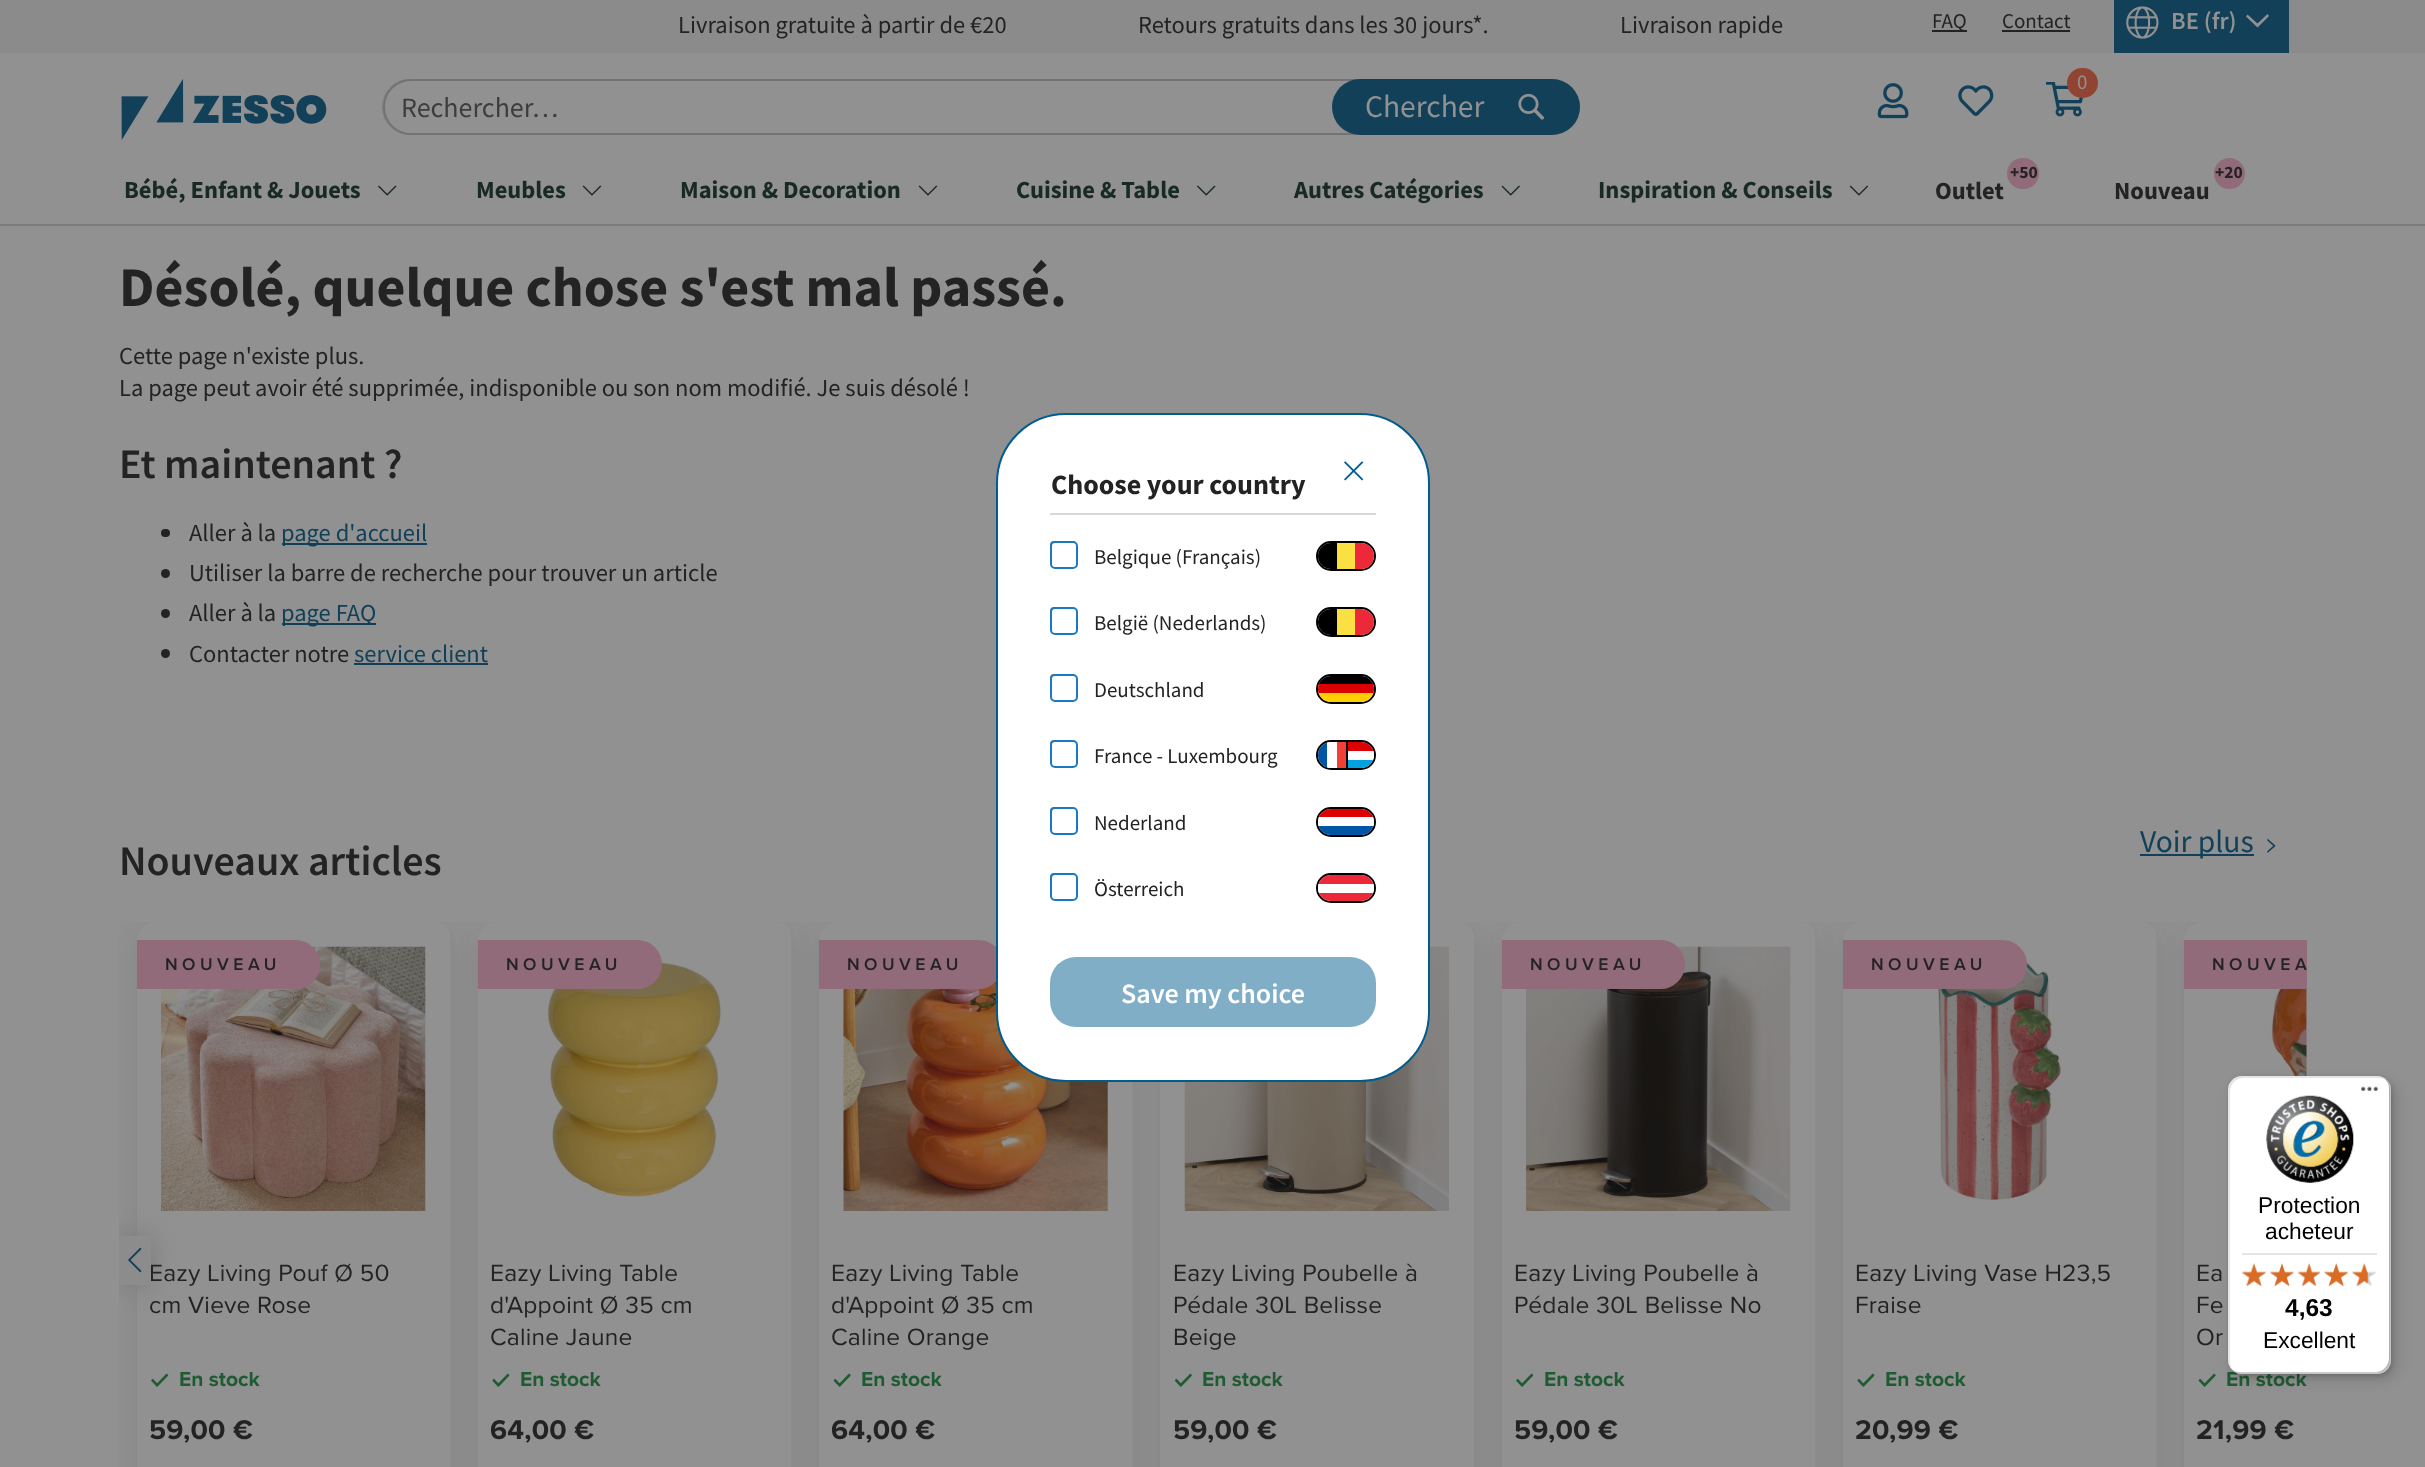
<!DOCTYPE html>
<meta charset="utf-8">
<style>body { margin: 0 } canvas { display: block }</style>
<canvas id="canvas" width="2425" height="1467"></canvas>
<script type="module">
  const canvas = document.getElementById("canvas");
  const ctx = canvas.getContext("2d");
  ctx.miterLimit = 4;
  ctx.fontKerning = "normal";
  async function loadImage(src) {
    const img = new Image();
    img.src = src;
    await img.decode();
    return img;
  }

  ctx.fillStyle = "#919191";
  ctx.fillRect(0, 0, 2425, 1467);
  ctx.fillStyle = "#8b8b8b";
  ctx.fillRect(0, 0, 2425, 53);
  ctx.font = "24.5px Source Sans Pro";
  ctx.fillStyle = "#232323";
  ctx.fillText("Livraison gratuite à partir de €20", 678, 33);
  ctx.fillText("Retours gratuits dans les 30 jours*.", 1138, 33);
  ctx.fillText("Livraison rapide", 1620, 33);
  ctx.fillRect(1932, 30, 35, 2);
  ctx.font = "21px Source Sans Pro";
  ctx.fillText("FAQ", 1932, 28);
  ctx.fillText("Contact", 2002, 28);
  ctx.fillRect(2002, 30, 68, 2);
  ctx.fillStyle = "#124059";
  ctx.fillRect(2114, 0, 175, 53);
  ctx.drawImage(await loadImage("img1.png"), 2126, 6, 33, 33);
  ctx.font = "600 24.5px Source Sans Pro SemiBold";
  ctx.fillStyle = "#919191";
  ctx.fillText("BE (fr)", 2171, 29);
  ctx.beginPath();
  ctx.moveTo(2257.5, 23.5);
  ctx.lineTo(2247.5, 14.5);
  ctx.lineTo(2246, 16.5);
  ctx.lineTo(2257.5, 27.5);
  ctx.lineTo(2269, 16);
  ctx.lineTo(2267.5, 14);
  ctx.closePath();
  ctx.fill();
  ctx.drawImage(await loadImage("img2.png"), 121, 79, 206, 61);
  ctx.beginPath();
  ctx.roundRect(383, 80, 1196, 54, 27);
  ctx.strokeStyle = "#808080";
  ctx.lineWidth = 2;
  ctx.stroke();
  ctx.beginPath();
  ctx.roundRect(384, 80, 1194, 54, 27);
  ctx.fill();
  ctx.strokeStyle = "#737373";
  ctx.stroke();
  ctx.font = "28px Source Sans Pro";
  ctx.fillStyle = "#3d3d3d";
  ctx.fillText("Rechercher…", 401, 117);
  ctx.fillStyle = "#124059";
  ctx.beginPath();
  ctx.roundRect(1332, 79, 248, 56, 28);
  ctx.fill();
  ctx.font = "31.5px Source Sans Pro";
  ctx.fillStyle = "#919191";
  ctx.fillText("Chercher", 1365, 117);
  ctx.drawImage(await loadImage("img3.png"), 1518, 93, 27, 27);
  ctx.drawImage(await loadImage("img4.png"), 1877, 83, 32, 36);
  ctx.drawImage(await loadImage("img5.png"), 1958, 85, 36, 31);
  ctx.drawImage(await loadImage("img6.png"), 2046, 82, 37, 35);
  ctx.fillStyle = "#914432";
  ctx.beginPath();
  ctx.roundRect(2067, 68, 31, 30, 15);
  ctx.fill();
  ctx.font = "21px Source Sans Pro";
  ctx.fillStyle = "#919191";
  ctx.fillText("0", 2077, 89);
  ctx.fillStyle = "#7e7c79";
  ctx.fillRect(0, 224, 2425, 2);
  ctx.font = "bold 24.5px Source Sans Pro";
  ctx.fillStyle = "#192925";
  ctx.fillText("Bébé, Enfant & Jouets", 124, 198);
  ctx.drawImage(await loadImage("img7.png"), 378, 185, 19, 11);
  ctx.fillText("Meubles", 476, 198);
  ctx.drawImage(await loadImage("img8.png"), 582, 185, 20, 11);
  ctx.fillText("Maison & Decoration", 680, 198);
  ctx.drawImage(await loadImage("img8.png"), 918, 185, 20, 11);
  ctx.fillText("Cuisine & Table", 1016, 198);
  ctx.drawImage(await loadImage("img7.png"), 1197, 185, 19, 11);
  ctx.fillText("Autres Catégories", 1294, 198);
  ctx.drawImage(await loadImage("img9.png"), 1501, 185, 19, 11);
  ctx.fillText("Inspiration & Conseils", 1598, 198);
  ctx.drawImage(await loadImage("img8.png"), 1849, 185, 20, 11);
  ctx.fillStyle = "#916b79";
  ctx.beginPath();
  ctx.roundRect(2007, 158, 32, 31, 15.5);
  ctx.fill();
  ctx.font = "bold 17.5px Source Sans Pro";
  ctx.fillStyle = "#232323";
  ctx.fillText("+50", 2010, 178);
  ctx.font = "bold 24.5px Source Sans Pro";
  ctx.fillText("Outlet", 1935, 199);
  ctx.fillStyle = "#916b79";
  ctx.beginPath();
  ctx.arc(2229.5, 173.5, 15.5, 0, Math.PI * 2);
  ctx.fill();
  ctx.font = "bold 17.5px Source Sans Pro";
  ctx.fillStyle = "#232323";
  ctx.fillText("+20", 2215, 178);
  ctx.font = "bold 24.5px Source Sans Pro";
  ctx.fillText("Nouveau", 2114, 199);
  ctx.font = "bold 56px Source Sans Pro";
  ctx.fillText("Désolé, quelque chose s'est mal passé.", 119, 306);
  ctx.font = "24.5px Source Sans Pro";
  ctx.fillText("Cette page n'existe plus.", 119, 364);
  ctx.fillText("La page peut avoir été supprimée, indisponible ou son nom modifié. Je suis désolé !", 119, 396);
  ctx.font = "600 42px Source Sans Pro SemiBold";
  ctx.fillText("Et maintenant ?", 119, 478);
  ctx.beginPath();
  ctx.roundRect(161, 529, 9, 8, 4);
  ctx.fill();
  ctx.font = "24.5px Source Sans Pro";
  ctx.fillText("Aller à la", 189, 541);
  ctx.fillStyle = "#124059";
  ctx.fillRect(282, 543, 145, 2);
  ctx.fillText("page d'accueil", 281, 541);
  ctx.fillStyle = "#232323";
  ctx.beginPath();
  ctx.arc(165.5, 573.5, 4.5, 0, Math.PI * 2);
  ctx.fill();
  ctx.fillText("Utiliser la barre de recherche pour trouver un article", 189, 581);
  ctx.beginPath();
  ctx.arc(165.5, 613.5, 4.5, 0, Math.PI * 2);
  ctx.fill();
  ctx.fillText("Aller à la", 189, 621);
  ctx.fillStyle = "#124059";
  ctx.fillRect(282, 623, 94, 2);
  ctx.fillText("page FAQ", 281, 621);
  ctx.fillStyle = "#232323";
  ctx.beginPath();
  ctx.arc(165.5, 653.5, 4.5, 0, Math.PI * 2);
  ctx.fill();
  ctx.fillText("Contacter notre", 189, 662);
  ctx.fillStyle = "#124059";
  ctx.fillText("service client", 354, 662);
  ctx.fillRect(354, 663, 134, 2);
  ctx.font = "600 42px Source Sans Pro SemiBold";
  ctx.fillStyle = "#232323";
  ctx.fillText("Nouveaux articles", 119, 875);
  ctx.fillStyle = "#124059";
  ctx.fillRect(2140, 854, 114, 2);
  ctx.font = "31.5px Source Sans Pro";
  ctx.fillText("Voir plus", 2140, 852);
  ctx.drawImage(await loadImage("img10.png"), 2267, 838, 9, 15);
  ctx.save();
  ctx.beginPath();
  ctx.rect(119, 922, 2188, 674);
  ctx.clip();
  ctx.fillStyle = "rgba(18, 18, 18, 0.1)";
  ctx.filter = "blur(14px)";
  ctx.beginPath();
  ctx.roundRect(137, 929, 315, 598, 18);
  ctx.fill();
  ctx.filter = "none";
  ctx.restore();
  ctx.fillStyle = "#919191";
  ctx.beginPath();
  ctx.roundRect(137, 922, 315, 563, 18);
  ctx.fill();
  ctx.drawImage(await loadImage("img12.png"), 161, 946, 265, 265);
  ctx.save();
  ctx.beginPath();
  ctx.rect(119, 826, 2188, 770);
  ctx.clip();
  ctx.fillStyle = "#797979";
  ctx.filter = "blur(13px)";
  ctx.beginPath();
  ctx.rect(119, 1236, 32, 49);
  ctx.fill();
  ctx.filter = "none";
  ctx.restore();
  ctx.letterSpacing = "0.25px";
  ctx.font = "24.5px Proxima Nova";
  ctx.fillStyle = "#232323";
  ctx.fillText("Eazy Living Pouf Ø 50", 149, 1281);
  ctx.fillStyle = "#8c8c8c";
  ctx.fillRect(119, 1236, 32, 49);
  ctx.drawImage(await loadImage("img11.png"), 128, 1247, 14, 26);
  ctx.fillRect(450, 931, 2, 536);
  ctx.fillStyle = "#916b79";
  ctx.beginPath();
  ctx.roundRect(137, 940, 183, 49, [0, 24.5, 24.5, 0]);
  ctx.fill();
  ctx.letterSpacing = "4.5px";
  ctx.font = "600 17.5px Proxima Nova";
  ctx.fillStyle = "#232323";
  ctx.fillText("NOUVEAU", 165, 970);
  ctx.letterSpacing = "0.25px";
  ctx.font = "24.5px Proxima Nova";
  ctx.fillText("cm Vieve Rose", 149, 1313);
  ctx.drawImage(await loadImage("img13.png"), 151, 1373, 18, 14);
  ctx.letterSpacing = "0px";
  ctx.font = "bold 21px Proxima Nova";
  ctx.fillStyle = "#1e5b33";
  ctx.fillText("En stock", 179, 1386);
  ctx.letterSpacing = "0.25px";
  ctx.font = "bold 28px Proxima Nova";
  ctx.fillStyle = "#232323";
  ctx.fillText("59,00 €", 149, 1439);
  ctx.save();
  ctx.beginPath();
  ctx.rect(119, 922, 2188, 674);
  ctx.clip();
  ctx.fillStyle = "rgba(18, 18, 18, 0.1)";
  ctx.filter = "blur(14px)";
  ctx.beginPath();
  ctx.roundRect(478, 929, 315, 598, 18);
  ctx.fill();
  ctx.filter = "none";
  ctx.restore();
  ctx.fillStyle = "#919191";
  ctx.beginPath();
  ctx.roundRect(478, 922, 315, 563, 18);
  ctx.fill();
  ctx.fillStyle = "#8c8c8c";
  ctx.fillRect(791, 931, 2, 536);
  ctx.drawImage(await loadImage("img14.png"), 547, 961, 174, 236);
  ctx.fillStyle = "#916b79";
  ctx.beginPath();
  ctx.roundRect(478, 940, 184, 49, [0, 24.5, 24.5, 0]);
  ctx.fill();
  ctx.letterSpacing = "4.5px";
  ctx.font = "600 17.5px Proxima Nova";
  ctx.fillStyle = "#232323";
  ctx.fillText("NOUVEAU", 506, 970);
  ctx.letterSpacing = "0.25px";
  ctx.font = "24.5px Proxima Nova";
  ctx.fillText("Eazy Living Table", 490, 1281);
  ctx.fillText("d'Appoint Ø 35 cm", 490, 1313);
  ctx.fillText("Caline Jaune", 490, 1345);
  ctx.drawImage(await loadImage("img15.png"), 492, 1373, 18, 14);
  ctx.letterSpacing = "0px";
  ctx.font = "bold 21px Proxima Nova";
  ctx.fillStyle = "#1e5b33";
  ctx.fillText("En stock", 520, 1386);
  ctx.letterSpacing = "0.25px";
  ctx.font = "bold 28px Proxima Nova";
  ctx.fillStyle = "#232323";
  ctx.fillText("64,00 €", 490, 1439);
  ctx.save();
  ctx.beginPath();
  ctx.rect(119, 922, 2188, 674);
  ctx.clip();
  ctx.fillStyle = "rgba(18, 18, 18, 0.1)";
  ctx.filter = "blur(14px)";
  ctx.beginPath();
  ctx.roundRect(819, 929, 315, 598, 18);
  ctx.fill();
  ctx.filter = "none";
  ctx.restore();
  ctx.fillStyle = "#919191";
  ctx.beginPath();
  ctx.roundRect(819, 922, 315, 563, 18);
  ctx.fill();
  ctx.fillStyle = "#8c8c8c";
  ctx.fillRect(1132, 1082, 2, 385);
  ctx.drawImage(await loadImage("img16.png"), 843, 946, 265, 265);
  ctx.fillStyle = "#916b79";
  ctx.beginPath();
  ctx.roundRect(819, 940, 184, 49, [0, 24.5, 24.5, 0]);
  ctx.fill();
  ctx.letterSpacing = "4.5px";
  ctx.font = "600 17.5px Proxima Nova";
  ctx.fillStyle = "#232323";
  ctx.fillText("NOUVEAU", 847, 970);
  ctx.letterSpacing = "0.25px";
  ctx.font = "24.5px Proxima Nova";
  ctx.fillText("Eazy Living Table", 831, 1281);
  ctx.fillText("d'Appoint Ø 35 cm", 831, 1313);
  ctx.fillText("Caline Orange", 831, 1345);
  ctx.drawImage(await loadImage("img17.png"), 833, 1373, 18, 14);
  ctx.letterSpacing = "0px";
  ctx.font = "bold 21px Proxima Nova";
  ctx.fillStyle = "#1e5b33";
  ctx.fillText("En stock", 861, 1386);
  ctx.letterSpacing = "0.25px";
  ctx.font = "bold 28px Proxima Nova";
  ctx.fillStyle = "#232323";
  ctx.fillText("64,00 €", 831, 1439);
  ctx.save();
  ctx.beginPath();
  ctx.rect(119, 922, 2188, 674);
  ctx.clip();
  ctx.fillStyle = "rgba(18, 18, 18, 0.1)";
  ctx.filter = "blur(14px)";
  ctx.beginPath();
  ctx.roundRect(1160, 929, 315, 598, 18);
  ctx.fill();
  ctx.filter = "none";
  ctx.restore();
  ctx.fillStyle = "#919191";
  ctx.beginPath();
  ctx.roundRect(1160, 922, 315, 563, 18);
  ctx.fill();
  ctx.fillStyle = "#8c8c8c";
  ctx.fillRect(1474, 931, 1, 536);
  ctx.drawImage(await loadImage("img18.png"), 1184, 946, 265, 265);
  ctx.font = "24.5px Proxima Nova";
  ctx.fillStyle = "#232323";
  ctx.fillText("Eazy Living Poubelle à", 1173, 1281);
  ctx.fillText("Pédale 30L Belisse", 1173, 1313);
  ctx.fillText("Beige", 1173, 1345);
  ctx.drawImage(await loadImage("img19.png"), 1174, 1373, 18, 14);
  ctx.letterSpacing = "0px";
  ctx.font = "bold 21px Proxima Nova";
  ctx.fillStyle = "#1e5b33";
  ctx.fillText("En stock", 1202, 1386);
  ctx.letterSpacing = "0.25px";
  ctx.font = "bold 28px Proxima Nova";
  ctx.fillStyle = "#232323";
  ctx.fillText("59,00 €", 1173, 1439);
  ctx.save();
  ctx.beginPath();
  ctx.rect(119, 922, 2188, 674);
  ctx.clip();
  ctx.fillStyle = "rgba(18, 18, 18, 0.1)";
  ctx.filter = "blur(14px)";
  ctx.beginPath();
  ctx.roundRect(1502, 929, 315, 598, 18);
  ctx.fill();
  ctx.filter = "none";
  ctx.restore();
  ctx.fillStyle = "#919191";
  ctx.beginPath();
  ctx.roundRect(1502, 922, 315, 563, 18);
  ctx.fill();
  ctx.fillStyle = "#8c8c8c";
  ctx.fillRect(1815, 931, 2, 536);
  ctx.drawImage(await loadImage("img20.png"), 1526, 946, 265, 265);
  ctx.fillStyle = "#916b79";
  ctx.beginPath();
  ctx.roundRect(1502, 940, 183, 49, [0, 24.5, 24.5, 0]);
  ctx.fill();
  ctx.letterSpacing = "4.5px";
  ctx.font = "600 17.5px Proxima Nova";
  ctx.fillStyle = "#232323";
  ctx.fillText("NOUVEAU", 1530, 970);
  ctx.letterSpacing = "0.25px";
  ctx.font = "24.5px Proxima Nova";
  ctx.fillText("Eazy Living Poubelle à", 1514, 1281);
  ctx.fillText("Pédale 30L Belisse No", 1514, 1313);
  ctx.drawImage(await loadImage("img13.png"), 1516, 1373, 18, 14);
  ctx.letterSpacing = "0px";
  ctx.font = "bold 21px Proxima Nova";
  ctx.fillStyle = "#1e5b33";
  ctx.fillText("En stock", 1544, 1386);
  ctx.letterSpacing = "0.25px";
  ctx.font = "bold 28px Proxima Nova";
  ctx.fillStyle = "#232323";
  ctx.fillText("59,00 €", 1514, 1439);
  ctx.save();
  ctx.beginPath();
  ctx.rect(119, 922, 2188, 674);
  ctx.clip();
  ctx.fillStyle = "rgba(18, 18, 18, 0.1)";
  ctx.filter = "blur(14px)";
  ctx.beginPath();
  ctx.roundRect(1843, 929, 315, 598, 18);
  ctx.fill();
  ctx.filter = "none";
  ctx.restore();
  ctx.fillStyle = "#919191";
  ctx.beginPath();
  ctx.roundRect(1843, 922, 315, 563, 18);
  ctx.fill();
  ctx.fillStyle = "#8c8c8c";
  ctx.fillRect(2156, 931, 2, 536);
  ctx.drawImage(await loadImage("img21.png"), 1938, 957, 123, 243);
  ctx.fillStyle = "#916b79";
  ctx.beginPath();
  ctx.roundRect(1843, 940, 184, 49, [0, 24.5, 24.5, 0]);
  ctx.fill();
  ctx.letterSpacing = "4.5px";
  ctx.font = "600 17.5px Proxima Nova";
  ctx.fillStyle = "#232323";
  ctx.fillText("NOUVEAU", 1871, 970);
  ctx.letterSpacing = "0.25px";
  ctx.font = "24.5px Proxima Nova";
  ctx.fillText("Eazy Living Vase H23,5", 1855, 1281);
  ctx.fillText("Fraise", 1855, 1313);
  ctx.drawImage(await loadImage("img15.png"), 1857, 1373, 18, 14);
  ctx.letterSpacing = "0px";
  ctx.font = "bold 21px Proxima Nova";
  ctx.fillStyle = "#1e5b33";
  ctx.fillText("En stock", 1885, 1386);
  ctx.letterSpacing = "0.25px";
  ctx.font = "bold 28px Proxima Nova";
  ctx.fillStyle = "#232323";
  ctx.fillText("20,99 €", 1855, 1439);
  ctx.save();
  ctx.beginPath();
  ctx.rect(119, 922, 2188, 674);
  ctx.clip();
  ctx.fillStyle = "rgba(18, 18, 18, 0.1)";
  ctx.filter = "blur(14px)";
  ctx.beginPath();
  ctx.roundRect(2184, 929, 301, 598, 18);
  ctx.fill();
  ctx.filter = "none";
  ctx.restore();
  ctx.fillStyle = "#919191";
  ctx.beginPath();
  ctx.moveTo(2202, 922);
  ctx.lineTo(2307, 922);
  ctx.lineTo(2307, 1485);
  ctx.lineTo(2202, 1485);
  ctx.bezierCurveTo(2192, 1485, 2184, 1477, 2184, 1467);
  ctx.lineTo(2184, 940);
  ctx.bezierCurveTo(2184, 930, 2192, 922, 2202, 922);
  ctx.closePath();
  ctx.fill();
  ctx.fillStyle = "#916b79";
  ctx.fillRect(2184, 940, 123, 49);
  ctx.letterSpacing = "4.5px";
  ctx.font = "600 17.5px Proxima Nova";
  ctx.fillStyle = "#232323";
  ctx.fillText("NOUVEA", 2212, 970);
  ctx.drawImage(await loadImage("img22.png"), 2265, 989, 42, 87);
  ctx.letterSpacing = "0.25px";
  ctx.font = "24.5px Proxima Nova";
  ctx.fillText("Ea", 2196, 1281);
  ctx.fillText("Fe", 2196, 1313);
  ctx.fillText("Or", 2196, 1345);
  ctx.drawImage(await loadImage("img17.png"), 2198, 1373, 18, 14);
  ctx.letterSpacing = "0px";
  ctx.font = "bold 21px Proxima Nova";
  ctx.fillStyle = "#1e5b33";
  ctx.fillText("En stock", 2226, 1386);
  ctx.letterSpacing = "0.25px";
  ctx.font = "bold 28px Proxima Nova";
  ctx.fillStyle = "#232323";
  ctx.fillText("21,99 €", 2196, 1439);
  ctx.fillStyle = "#ffffff";
  ctx.beginPath();
  ctx.roundRect(997, 414, 432, 667, 69);
  ctx.fill();
  ctx.strokeStyle = "#005c8f";
  ctx.stroke();
  ctx.fillStyle = "#d8d8d8";
  ctx.fillRect(1050, 513, 326, 2);
  ctx.drawImage(await loadImage("img23.png"), 1344, 461, 20, 20);
  ctx.letterSpacing = "0px";
  ctx.font = "bold 28px Source Sans Pro";
  ctx.fillStyle = "#232323";
  ctx.fillText("Choose your country", 1051, 494);
  ctx.beginPath();
  ctx.roundRect(1051, 542, 21, 21, 3);
  ctx.strokeStyle = "#767676";
  ctx.stroke();
  ctx.fillStyle = "#ffffff";
  ctx.beginPath();
  ctx.roundRect(1051, 542, 26, 26, 4);
  ctx.fill();
  ctx.strokeStyle = "#1979c3";
  ctx.stroke();
  ctx.font = "21px Source Sans Pro";
  ctx.fillStyle = "#232323";
  ctx.fillText("Belgique (Français)", 1094, 564);
  ctx.beginPath();
  ctx.roundRect(1317, 542, 58, 28, 14);
  ctx.strokeStyle = "#000000";
  ctx.stroke();
  ctx.fillStyle = "#000000";
  ctx.beginPath();
  ctx.roundRect(1318, 543, 19, 26, [13, 0, 0, 13]);
  ctx.fill();
  ctx.fillStyle = "#fae042";
  ctx.fillRect(1337, 543, 18, 26);
  ctx.fillStyle = "#ed2939";
  ctx.beginPath();
  ctx.roundRect(1355, 543, 19, 26, [0, 13, 13, 0]);
  ctx.fill();
  ctx.beginPath();
  ctx.roundRect(1051, 608, 21, 21, 3);
  ctx.strokeStyle = "#767676";
  ctx.stroke();
  ctx.fillStyle = "#ffffff";
  ctx.beginPath();
  ctx.roundRect(1051, 608, 26, 26, 4);
  ctx.fill();
  ctx.strokeStyle = "#1979c3";
  ctx.stroke();
  ctx.fillStyle = "#232323";
  ctx.fillText("België (Nederlands)", 1094, 630);
  ctx.beginPath();
  ctx.roundRect(1317, 608, 58, 28, 14);
  ctx.strokeStyle = "#000000";
  ctx.stroke();
  ctx.fillStyle = "#000000";
  ctx.beginPath();
  ctx.roundRect(1318, 609, 19, 26, [13, 0, 0, 13]);
  ctx.fill();
  ctx.fillStyle = "#fae042";
  ctx.fillRect(1337, 609, 18, 26);
  ctx.fillStyle = "#ed2939";
  ctx.beginPath();
  ctx.roundRect(1355, 609, 19, 26, [0, 13, 13, 0]);
  ctx.fill();
  ctx.beginPath();
  ctx.roundRect(1051, 675, 21, 21, 3);
  ctx.strokeStyle = "#767676";
  ctx.stroke();
  ctx.fillStyle = "#ffffff";
  ctx.beginPath();
  ctx.roundRect(1051, 675, 26, 26, 4);
  ctx.fill();
  ctx.strokeStyle = "#1979c3";
  ctx.stroke();
  ctx.fillStyle = "#232323";
  ctx.fillText("Deutschland", 1094, 697);
  ctx.beginPath();
  ctx.roundRect(1317, 675, 58, 28, 14);
  ctx.strokeStyle = "#000000";
  ctx.stroke();
  ctx.save();
  ctx.beginPath();
  ctx.roundRect(1318, 676, 56, 26, 13);
  ctx.clip();
  ctx.fillStyle = "#000000";
  ctx.fillRect(1318, 676, 56, 8);
  ctx.fillStyle = "#dd0000";
  ctx.fillRect(1318, 684, 56, 9);
  ctx.fillStyle = "#ffce00";
  ctx.fillRect(1318, 693, 56, 9);
  ctx.restore();
  ctx.beginPath();
  ctx.roundRect(1051, 741, 21, 21, 3);
  ctx.strokeStyle = "#767676";
  ctx.stroke();
  ctx.fillStyle = "#ffffff";
  ctx.beginPath();
  ctx.roundRect(1051, 741, 26, 26, 4);
  ctx.fill();
  ctx.strokeStyle = "#1979c3";
  ctx.stroke();
  ctx.fillStyle = "#232323";
  ctx.fillText("France - Luxembourg", 1094, 763);
  ctx.beginPath();
  ctx.roundRect(1317, 741, 58, 28, 14);
  ctx.strokeStyle = "#000000";
  ctx.stroke();
  ctx.save();
  ctx.beginPath();
  ctx.roundRect(1318, 742, 56, 26, 13);
  ctx.clip();
  ctx.fillStyle = "#0055a4";
  ctx.fillRect(1318, 742, 9, 26);
  ctx.fillStyle = "#ffffff";
  ctx.fillRect(1327, 742, 10, 26);
  ctx.restore();
  ctx.fillStyle = "#ef4135";
  ctx.fillRect(1337, 742, 9, 26);
  ctx.save();
  ctx.beginPath();
  ctx.roundRect(1318, 742, 56, 26, 13);
  ctx.clip();
  ctx.fillStyle = "#dd0000";
  ctx.fillRect(1348, 742, 26, 9);
  ctx.fillStyle = "#ffffff";
  ctx.fillRect(1348, 751, 26, 9);
  ctx.fillStyle = "#00a2e0";
  ctx.fillRect(1346, 760, 28, 8);
  ctx.restore();
  ctx.fillStyle = "#000000";
  ctx.fillRect(1346, 742, 2, 26);
  ctx.beginPath();
  ctx.roundRect(1051, 808, 21, 21, 3);
  ctx.strokeStyle = "#767676";
  ctx.stroke();
  ctx.fillStyle = "#ffffff";
  ctx.beginPath();
  ctx.roundRect(1051, 808, 26, 26, 4);
  ctx.fill();
  ctx.strokeStyle = "#1979c3";
  ctx.stroke();
  ctx.fillStyle = "#232323";
  ctx.fillText("Nederland", 1094, 830);
  ctx.beginPath();
  ctx.roundRect(1317, 808, 58, 28, 14);
  ctx.strokeStyle = "#000000";
  ctx.stroke();
  ctx.save();
  ctx.beginPath();
  ctx.roundRect(1318, 809, 56, 26, 13);
  ctx.clip();
  ctx.fillStyle = "#dd0000";
  ctx.fillRect(1318, 809, 56, 8);
  ctx.fillStyle = "#ffffff";
  ctx.fillRect(1318, 817, 56, 9);
  ctx.fillStyle = "#0055a4";
  ctx.fillRect(1318, 826, 56, 9);
  ctx.restore();
  ctx.beginPath();
  ctx.roundRect(1051, 874, 21, 21, 3);
  ctx.strokeStyle = "#767676";
  ctx.stroke();
  ctx.fillStyle = "#ffffff";
  ctx.beginPath();
  ctx.roundRect(1051, 874, 26, 26, 4);
  ctx.fill();
  ctx.strokeStyle = "#1979c3";
  ctx.stroke();
  ctx.fillStyle = "#232323";
  ctx.fillText("Österreich", 1094, 896);
  ctx.beginPath();
  ctx.roundRect(1317, 874, 58, 28, 14);
  ctx.strokeStyle = "#000000";
  ctx.stroke();
  ctx.save();
  ctx.beginPath();
  ctx.roundRect(1318, 875, 56, 26, 13);
  ctx.clip();
  ctx.fillStyle = "#ed2939";
  ctx.fillRect(1318, 875, 56, 9);
  ctx.fillStyle = "#ffffff";
  ctx.fillRect(1318, 884, 56, 9);
  ctx.fillStyle = "#ed2939";
  ctx.fillRect(1318, 893, 56, 8);
  ctx.restore();
  ctx.fillStyle = "#80aec7";
  ctx.beginPath();
  ctx.roundRect(1050, 957, 326, 70, 26);
  ctx.fill();
  ctx.font = "600 28px Source Sans Pro SemiBold";
  ctx.fillStyle = "#ffffff";
  ctx.fillText("Save my choice", 1121, 1003);
  ctx.fillStyle = "rgba(0, 0, 0, 0.15)";
  ctx.filter = "blur(7px)";
  ctx.beginPath();
  ctx.roundRect(2233, 1082, 163, 297, 14);
  ctx.fill();
  ctx.filter = "none";
  ctx.filter = "blur(2px)";
  ctx.beginPath();
  ctx.roundRect(2230, 1078, 162, 298, 14);
  ctx.fill();
  ctx.filter = "none";
  ctx.fillStyle = "#ffffff";
  ctx.beginPath();
  ctx.roundRect(2228, 1076, 163, 298, 14);
  ctx.fill();
  ctx.fillStyle = "rgba(0, 0, 0, 0.1)";
  ctx.beginPath();
  ctx.moveTo(2244, 1078);
  ctx.lineTo(2378, 1078);
  ctx.bezierCurveTo(2383, 1078, 2387, 1080, 2390, 1084);
  ctx.bezierCurveTo(2387, 1079, 2383, 1076, 2377, 1076);
  ctx.lineTo(2242, 1076);
  ctx.bezierCurveTo(2234, 1076, 2228, 1082, 2228, 1090);
  ctx.lineTo(2228, 1360);
  ctx.bezierCurveTo(2228, 1365, 2230, 1369, 2234, 1371);
  ctx.bezierCurveTo(2231, 1369, 2230, 1365, 2230, 1362);
  ctx.lineTo(2230, 1092);
  ctx.bezierCurveTo(2230, 1084, 2236, 1078, 2244, 1078);
  ctx.closePath();
  ctx.fill();
  ctx.fillStyle = "rgba(0, 0, 0, 0.2)";
  ctx.beginPath();
  ctx.moveTo(2232, 1369);
  ctx.bezierCurveTo(2234, 1372, 2238, 1374, 2242, 1374);
  ctx.lineTo(2377, 1374);
  ctx.bezierCurveTo(2385, 1374, 2391, 1368, 2391, 1360);
  ctx.lineTo(2391, 1090);
  ctx.bezierCurveTo(2391, 1085, 2388, 1080, 2384, 1078);
  ctx.bezierCurveTo(2387, 1081, 2389, 1084, 2389, 1088);
  ctx.lineTo(2389, 1358);
  ctx.bezierCurveTo(2389, 1366, 2382, 1372, 2375, 1372);
  ctx.lineTo(2240, 1372);
  ctx.bezierCurveTo(2237, 1372, 2234, 1371, 2232, 1369);
  ctx.closePath();
  ctx.fill();
  ctx.fillStyle = "rgba(50, 50, 50, 0.2)";
  ctx.beginPath();
  ctx.moveTo(2231, 1368);
  ctx.bezierCurveTo(2233, 1372, 2237, 1374, 2242, 1374);
  ctx.lineTo(2377, 1374);
  ctx.bezierCurveTo(2385, 1374, 2391, 1368, 2391, 1360);
  ctx.lineTo(2391, 1090);
  ctx.bezierCurveTo(2391, 1084, 2388, 1080, 2383, 1077);
  ctx.bezierCurveTo(2387, 1080, 2389, 1084, 2389, 1089);
  ctx.lineTo(2389, 1359);
  ctx.bezierCurveTo(2389, 1366, 2383, 1373, 2375, 1373);
  ctx.lineTo(2241, 1373);
  ctx.bezierCurveTo(2237, 1373, 2233, 1371, 2231, 1368);
  ctx.closePath();
  ctx.fill();
  ctx.fillStyle = "rgba(255, 255, 255, 0.3)";
  ctx.beginPath();
  ctx.moveTo(2233, 1370);
  ctx.bezierCurveTo(2235, 1373, 2238, 1374, 2242, 1374);
  ctx.lineTo(2377, 1374);
  ctx.bezierCurveTo(2385, 1374, 2391, 1368, 2391, 1360);
  ctx.lineTo(2391, 1090);
  ctx.bezierCurveTo(2391, 1085, 2388, 1080, 2384, 1078);
  ctx.bezierCurveTo(2387, 1080, 2390, 1085, 2390, 1089);
  ctx.lineTo(2390, 1359);
  ctx.bezierCurveTo(2390, 1367, 2383, 1373, 2376, 1373);
  ctx.lineTo(2241, 1373);
  ctx.bezierCurveTo(2238, 1373, 2235, 1372, 2233, 1370);
  ctx.closePath();
  ctx.fill();
  ctx.drawImage(await loadImage("img24.png"), 2361, 1086, 18, 5);
  ctx.drawImage(await loadImage("img25.png"), 2266, 1095, 88, 88);
  ctx.font = "22.75px Liberation Sans";
  ctx.fillStyle = "#000000";
  ctx.fillText("Protection", 2258, 1213);
  ctx.fillText("acheteur", 2265, 1239);
  ctx.fillStyle = "#e5e5e5";
  ctx.fillRect(2242, 1253, 135, 2);
  ctx.drawImage(await loadImage("img31.png"), 2242, 1263, 24, 23);
  ctx.drawImage(await loadImage("img26.png"), 2241, 1263, 25, 24);
  ctx.drawImage(await loadImage("img32.png"), 2270, 1264, 24, 22);
  ctx.drawImage(await loadImage("img27.png"), 2270, 1263, 24, 24);
  ctx.drawImage(await loadImage("img33.png"), 2298, 1263, 22, 23);
  ctx.drawImage(await loadImage("img28.png"), 2297, 1263, 24, 24);
  ctx.drawImage(await loadImage("img34.png"), 2324, 1264, 24, 22);
  ctx.drawImage(await loadImage("img29.png"), 2324, 1263, 24, 24);
  ctx.drawImage(await loadImage("img35.png"), 2352, 1263, 24, 23);
  ctx.drawImage(await loadImage("img30.png"), 2352, 1263, 16, 24);
  ctx.font = "bold 24.5px Liberation Sans";
  ctx.fillStyle = "#000000";
  ctx.fillText("4,63", 2285, 1316);
  ctx.font = "22.75px Liberation Sans";
  ctx.fillText("Excellent", 2263, 1348);
</script>
